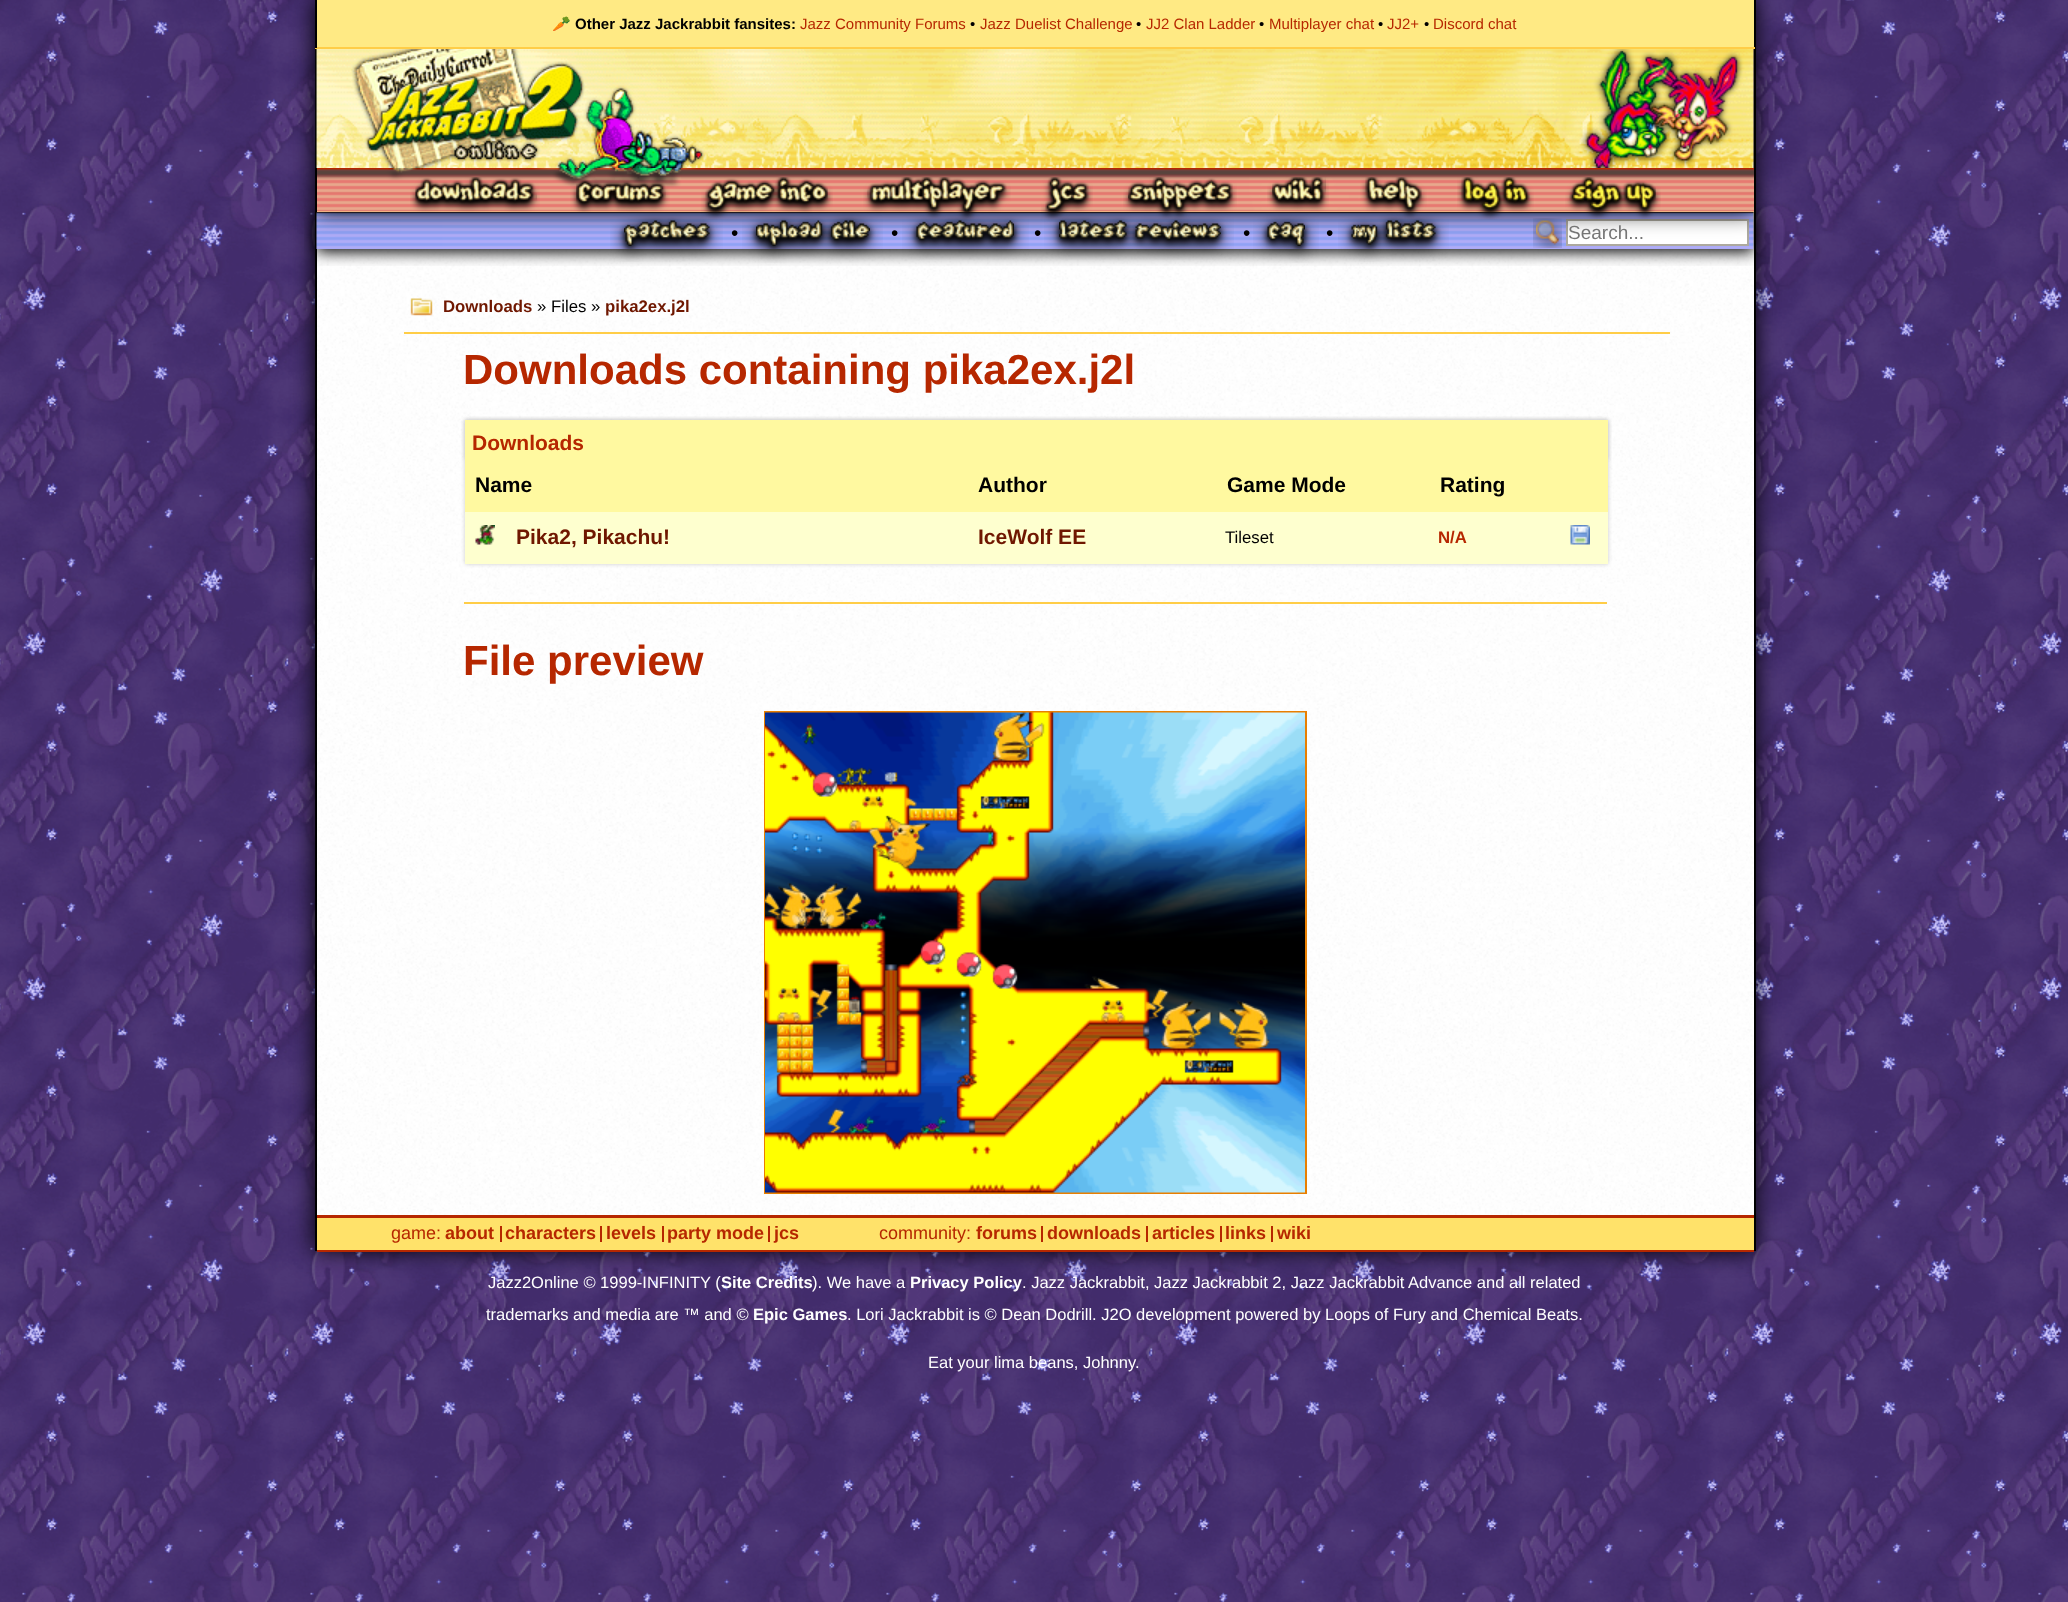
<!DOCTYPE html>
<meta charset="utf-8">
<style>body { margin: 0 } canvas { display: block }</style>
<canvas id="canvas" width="2068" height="1602"></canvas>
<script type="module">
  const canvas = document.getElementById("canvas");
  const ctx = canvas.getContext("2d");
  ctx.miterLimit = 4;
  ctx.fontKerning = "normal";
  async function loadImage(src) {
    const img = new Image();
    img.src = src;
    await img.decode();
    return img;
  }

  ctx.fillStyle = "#ffffff";
  ctx.fillRect(0, 0, 2068, 1602);
  ctx.drawImage(await loadImage("img1.png"), 0, 0, 2068, 1602);
  ctx.fillStyle = "#000000";
  ctx.filter = "blur(11px)";
  ctx.beginPath();
  ctx.rect(315, 212, 1440, 1039);
  ctx.fill();
  ctx.filter = "none";
  ctx.fillRect(1754, 212, 2, 1039);
  ctx.fillRect(315, 212, 2, 1039);
  ctx.fillStyle = "#fffcb4";
  ctx.fillRect(1753, 212, 1, 37);
  ctx.drawImage(await loadImage("img14.png"), 317, 249, 1437, 966);
  ctx.drawImage(await loadImage("img15.png"), 304, 203, 1462, 63);
  ctx.drawImage(await loadImage("img16.png"), 610, 213, 113, 49);
  ctx.drawImage(await loadImage("img17.png"), 742, 213, 141, 50);
  ctx.drawImage(await loadImage("img18.png"), 902, 213, 127, 47);
  ctx.drawImage(await loadImage("img19.png"), 1044, 213, 190, 47);
  ctx.drawImage(await loadImage("img20.png"), 1253, 213, 66, 50);
  ctx.drawImage(await loadImage("img21.png"), 1338, 213, 111, 49);
  ctx.drawImage(await loadImage("img22.png"), 1533, 218, 29, 30);
  ctx.fillStyle = "#ffffff";
  ctx.beginPath();
  ctx.rect(1567, 220, 181, 25);
  ctx.fill();
  ctx.strokeStyle = "#ada99f";
  ctx.lineWidth = 2;
  ctx.stroke();
  ctx.fillStyle = "#000000";
  ctx.filter = "blur(11px)";
  ctx.beginPath();
  ctx.rect(315, 0, 1440, 212);
  ctx.fill();
  ctx.filter = "none";
  ctx.fillRect(1754, 0, 2, 212);
  ctx.drawImage(await loadImage("img2.png"), 315, 49, 1439, 119);
  ctx.fillStyle = "#ffea84";
  ctx.fillRect(317, 0, 1437, 47);
  ctx.fillStyle = "#ffcd47";
  ctx.fillRect(315, 47, 1440, 2);
  ctx.fillStyle = "#000000";
  ctx.fillRect(315, 0, 2, 48);
  ctx.font = "bold 15px Noto Color Emoji";
  ctx.fillText("🥕", 552, 29);
  ctx.font = "bold 15px Liberation Sans";
  ctx.fillText("Other Jazz Jackrabbit fansites:", 575, 29);
  ctx.font = "15px Liberation Sans";
  ctx.fillStyle = "#b62700";
  ctx.fillText("Jazz Community Forums", 800, 29);
  ctx.fillStyle = "#000000";
  ctx.fillText("•", 970, 29);
  ctx.fillStyle = "#b62700";
  ctx.fillText("Jazz Duelist Challenge", 980, 29);
  ctx.fillStyle = "#000000";
  ctx.fillText("•", 1136, 29);
  ctx.fillStyle = "#b62700";
  ctx.fillText("JJ2 Clan Ladder", 1146, 29);
  ctx.fillStyle = "#000000";
  ctx.fillText("•", 1259, 29);
  ctx.fillStyle = "#b62700";
  ctx.fillText("Multiplayer chat", 1269, 29);
  ctx.fillStyle = "#000000";
  ctx.fillText("•", 1378, 29);
  ctx.fillStyle = "#b62700";
  ctx.fillText("JJ2+", 1387, 29);
  ctx.fillStyle = "#000000";
  ctx.fillText("•", 1424, 29);
  ctx.fillStyle = "#b62700";
  ctx.fillText("Discord chat", 1433, 29);
  ctx.fillStyle = "#ffed98";
  ctx.fillRect(317, 169, 1437, 43);
  ctx.drawImage(await loadImage("img3.png"), 317, 168, 1437, 44);
  ctx.fillStyle = "#000000";
  ctx.fillRect(315, 168, 2, 44);
  ctx.drawImage(await loadImage("img4.png"), 410, 177, 130, 35);
  ctx.drawImage(await loadImage("img5.png"), 570, 178, 100, 34);
  ctx.drawImage(await loadImage("img6.png"), 701, 177, 132, 43);
  ctx.drawImage(await loadImage("img7.png"), 863, 177, 148, 44);
  ctx.drawImage(await loadImage("img8.png"), 1041, 177, 52, 45);
  ctx.drawImage(await loadImage("img9.png"), 1123, 177, 114, 43);
  ctx.drawImage(await loadImage("img10.png"), 1267, 176, 62, 36);
  ctx.drawImage(await loadImage("img11.png"), 1360, 176, 67, 44);
  ctx.drawImage(await loadImage("img12.png"), 1457, 177, 77, 43);
  ctx.drawImage(await loadImage("img13.png"), 1565, 177, 96, 43);
  ctx.font = "21px Liberation Sans";
  ctx.fillText("•", 731, 240);
  ctx.fillText("•", 891, 240);
  ctx.fillText("•", 1034, 240);
  ctx.fillText("•", 1243, 240);
  ctx.fillText("•", 1326, 240);
  ctx.font = "19px Liberation Sans";
  ctx.fillStyle = "#757575";
  ctx.fillText("Search...", 1568, 239);
  ctx.drawImage(await loadImage("img23.png"), 410, 298, 23, 18);
  ctx.fillStyle = "#ffcd47";
  ctx.fillRect(404, 332, 1266, 2);
  ctx.font = "bold 16.75px Liberation Sans";
  ctx.fillStyle = "#6f1700";
  ctx.fillText("Downloads", 443, 312);
  ctx.font = "16.75px Liberation Sans";
  ctx.fillStyle = "#000000";
  ctx.fillText("» Files »", 537, 312);
  ctx.font = "bold 16.75px Liberation Sans";
  ctx.fillStyle = "#6f1700";
  ctx.fillText("pika2ex.j2l", 605, 312);
  ctx.font = "bold 42px Liberation Sans";
  ctx.fillStyle = "#b62700";
  ctx.fillText("Downloads containing pika2ex.j2l", 463, 384);
  ctx.fillStyle = "#cccccc";
  ctx.filter = "blur(2px)";
  ctx.beginPath();
  ctx.rect(465, 420, 1143, 144);
  ctx.fill();
  ctx.filter = "none";
  ctx.fillStyle = "#feffcf";
  ctx.fillRect(465, 512, 1143, 52);
  ctx.fillStyle = "#cccccc";
  ctx.filter = "blur(2px)";
  ctx.beginPath();
  ctx.rect(465, 420, 1143, 39);
  ctx.fill();
  ctx.filter = "none";
  ctx.fillStyle = "#fff9a0";
  ctx.fillRect(465, 420, 1143, 39);
  ctx.font = "bold 21px Liberation Sans";
  ctx.fillStyle = "#b62700";
  ctx.fillText("Downloads", 472, 450);
  ctx.fillStyle = "#fff9a0";
  ctx.fillRect(465, 459, 1143, 53);
  ctx.fillStyle = "#000000";
  ctx.fillText("Name", 475, 492);
  ctx.fillText("Author", 978, 492);
  ctx.fillText("Game Mode", 1227, 492);
  ctx.fillText("Rating", 1440, 492);
  ctx.drawImage(await loadImage("img24.png"), 475, 525, 20, 20);
  ctx.fillStyle = "#6f1700";
  ctx.fillText("Pika2, Pikachu!", 516, 544);
  ctx.fillText("IceWolf EE", 978, 544);
  ctx.font = "16.75px Liberation Sans";
  ctx.fillStyle = "#000000";
  ctx.fillText("Tileset", 1225, 543);
  ctx.font = "bold 16.75px Liberation Sans";
  ctx.fillStyle = "#b62700";
  ctx.fillText("N/A", 1438, 543);
  ctx.drawImage(await loadImage("img25.png"), 1570, 525, 20, 20);
  ctx.fillStyle = "#ffcd47";
  ctx.fillRect(464, 602, 1143, 2);
  ctx.font = "bold 42px Liberation Sans";
  ctx.fillStyle = "#b62700";
  ctx.fillText("File preview", 463, 675);
  ctx.strokeStyle = "#e97f00";
  ctx.strokeRect(765, 712, 541, 481);
  ctx.drawImage(await loadImage("img26.png"), 765, 712, 540, 481);
  ctx.fillStyle = "#ffe26a";
  ctx.fillRect(317, 1218, 1437, 32);
  ctx.fillStyle = "#b62700";
  ctx.fillRect(317, 1215, 1437, 3);
  ctx.fillRect(317, 1250, 1437, 2);
  ctx.font = "18px Liberation Sans";
  ctx.fillText("game:", 391, 1239);
  ctx.fillRect(500, 1226, 2, 16);
  ctx.font = "bold 18px Liberation Sans";
  ctx.fillText("about", 445, 1239);
  ctx.fillRect(600, 1226, 2, 16);
  ctx.fillText("characters", 505, 1239);
  ctx.fillRect(662, 1226, 2, 16);
  ctx.fillText("levels", 606, 1239);
  ctx.fillRect(768, 1226, 2, 16);
  ctx.fillText("party mode", 667, 1239);
  ctx.fillText("jcs", 774, 1239);
  ctx.font = "18px Liberation Sans";
  ctx.fillText("community:", 879, 1239);
  ctx.fillRect(1041, 1226, 2, 16);
  ctx.font = "bold 18px Liberation Sans";
  ctx.fillText("forums", 976, 1239);
  ctx.fillRect(1146, 1226, 2, 16);
  ctx.fillText("downloads", 1047, 1239);
  ctx.fillRect(1220, 1226, 2, 16);
  ctx.fillText("articles", 1152, 1239);
  ctx.fillRect(1271, 1226, 2, 16);
  ctx.fillText("links", 1225, 1239);
  ctx.fillText("wiki", 1277, 1239);
  ctx.font = "16.5px Liberation Sans";
  ctx.fillStyle = "#ffffff";
  ctx.fillText("Jazz2Online © 1999-INFINITY (", 488, 1288);
  ctx.font = "bold 16.5px Liberation Sans";
  ctx.fillText("Site Credits", 721, 1288);
  ctx.font = "16.5px Liberation Sans";
  ctx.fillText("). We have a", 812, 1288);
  ctx.font = "bold 16.5px Liberation Sans";
  ctx.fillText("Privacy Policy", 910, 1288);
  ctx.font = "16.5px Liberation Sans";
  ctx.fillText(". Jazz Jackrabbit, Jazz Jackrabbit 2, Jazz Jackrabbit Advance and all related", 1022, 1288);
  ctx.fillText("trademarks and media are ™ and ©", 486, 1320);
  ctx.font = "bold 16.5px Liberation Sans";
  ctx.fillText("Epic Games", 753, 1320);
  ctx.font = "16.5px Liberation Sans";
  ctx.fillText(". Lori Jackrabbit is © Dean Dodrill. J2O development powered by Loops of Fury and Chemical Beats.", 847, 1320);
  ctx.fillText("Eat your lima beans, Johnny.", 928, 1368);
</script>
